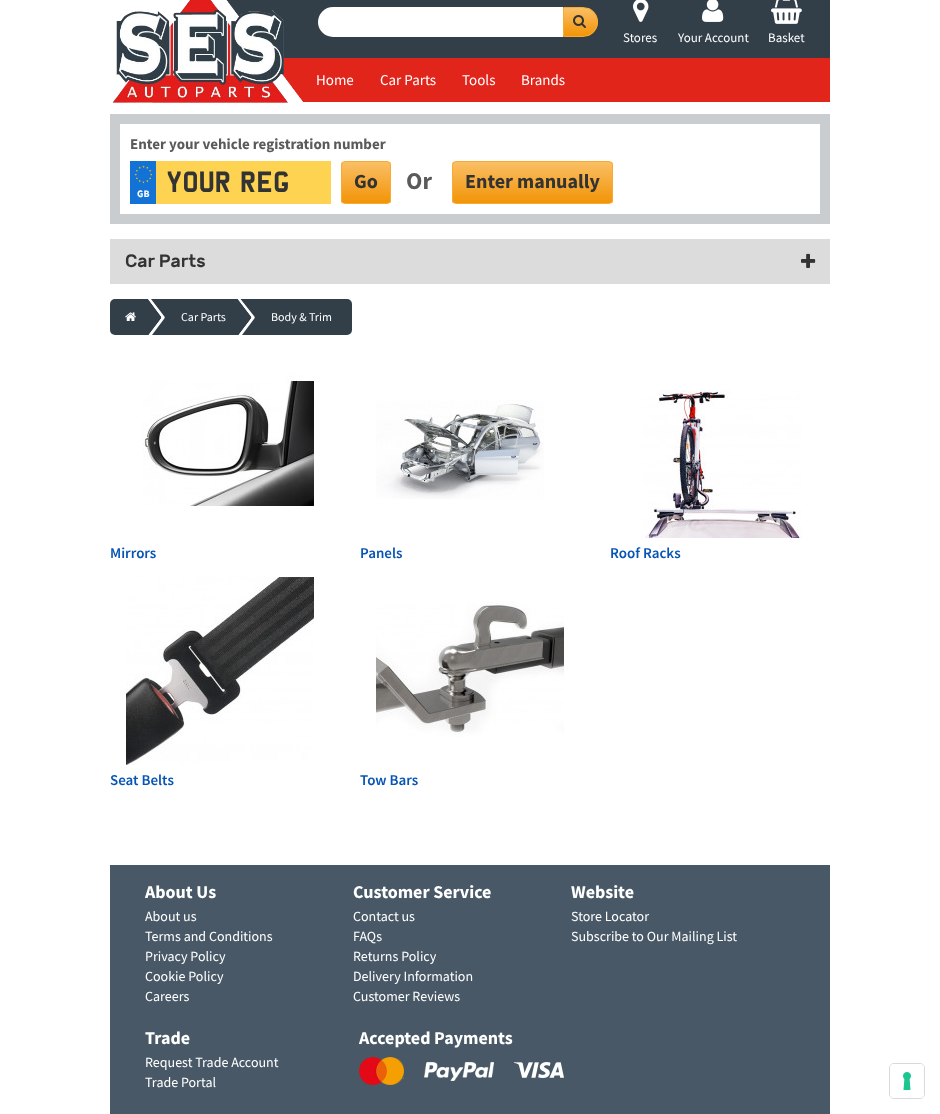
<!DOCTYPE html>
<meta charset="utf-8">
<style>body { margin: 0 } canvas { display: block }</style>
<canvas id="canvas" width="940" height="1114"></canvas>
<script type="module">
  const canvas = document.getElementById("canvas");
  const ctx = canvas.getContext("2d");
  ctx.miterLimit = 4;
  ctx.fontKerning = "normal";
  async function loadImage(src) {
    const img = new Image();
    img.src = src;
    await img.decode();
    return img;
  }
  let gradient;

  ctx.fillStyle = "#ffffff";
  ctx.fillRect(0, 0, 940, 1114);
  ctx.fillStyle = "#323e48";
  ctx.fillRect(226, 0, 77, 58);
  ctx.fillStyle = "#e1251b";
  ctx.fillRect(282, 58, 21, 44);
  ctx.drawImage(await loadImage("img1.png"), 112, 0, 192, 103);
  ctx.fillStyle = "#323e48";
  ctx.fillRect(303, 0, 527, 58);
  ctx.fillStyle = "#ffffff";
  ctx.beginPath();
  ctx.roundRect(318, 7, 245, 30, [15, 0, 0, 15]);
  ctx.fill();
  ctx.save();
  ctx.beginPath();
  ctx.roundRect(563, 7, 35, 30, [0, 15, 15, 0]);
  ctx.clip();
  gradient = ctx.createLinearGradient(581, 8, 581, 36);
  gradient.addColorStop(0, "#fabf65");
  gradient.addColorStop(1, "#f29407");
  ctx.fillStyle = gradient;
  ctx.fillRect(564, 8, 34, 28);
  ctx.restore();
  ctx.beginPath();
  ctx.roundRect(563.5, 7.5, 34, 29, [0, 14.5, 14.5, 0]);
  ctx.strokeStyle = "#f9aa33";
  ctx.stroke();
  ctx.drawImage(await loadImage("img2.png"), 573, 15, 13, 13);
  ctx.drawImage(await loadImage("img3.png"), 633, 0, 16, 22);
  ctx.font = "13px Source Sans Pro";
  ctx.fillText("Stores", 623, 42);
  ctx.drawImage(await loadImage("img4.png"), 702, 0, 22, 22);
  ctx.fillText("Your Account", 678, 42);
  ctx.drawImage(await loadImage("img5.png"), 771, 0, 31, 24);
  ctx.fillText("Basket", 768, 42);
  ctx.fillStyle = "#e1251b";
  ctx.fillRect(303, 58, 527, 44);
  ctx.font = "15px Source Sans Pro";
  ctx.fillStyle = "#ffffff";
  ctx.fillText("Home", 316, 85);
  ctx.fillText("Car Parts", 380, 85);
  ctx.fillText("Tools", 462, 85);
  ctx.fillText("Brands", 521, 85);
  ctx.beginPath();
  ctx.moveTo(115, 119);
  ctx.lineTo(825, 119);
  ctx.lineTo(825, 219);
  ctx.lineTo(115, 219);
  ctx.closePath();
  ctx.strokeStyle = "#cacdcf";
  ctx.lineWidth = 10;
  ctx.stroke();
  ctx.font = "bold 15px Source Sans Pro";
  ctx.fillStyle = "#5a5a5a";
  ctx.fillText("Enter your vehicle registration number", 130, 149);
  ctx.fillStyle = "#ffd352";
  ctx.fillRect(156, 161, 175, 43);
  ctx.font = "30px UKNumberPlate";
  ctx.fillStyle = "#333333";
  ctx.fillText("Your Reg", 166, 192);
  ctx.save();
  ctx.beginPath();
  ctx.roundRect(341, 161, 50, 43, 4);
  ctx.clip();
  gradient = ctx.createLinearGradient(366, 162, 366, 203);
  gradient.addColorStop(0, "#fabf65");
  gradient.addColorStop(1, "#f29407");
  ctx.fillStyle = gradient;
  ctx.fillRect(341, 162, 50, 41);
  ctx.restore();
  ctx.beginPath();
  ctx.roundRect(341.5, 161.5, 49, 42, 3.5);
  ctx.strokeStyle = "#f9aa33";
  ctx.lineWidth = 1;
  ctx.stroke();
  ctx.font = "bold 20px Source Sans Pro";
  ctx.fillText("Go", 354, 188);
  ctx.fillStyle = "#1372d5";
  ctx.fillRect(130, 161, 26, 43);
  ctx.drawImage(await loadImage("img6.png"), 134, 165, 19, 19);
  ctx.font = "bold 10px Source Sans Pro";
  ctx.fillStyle = "#ffffff";
  ctx.fillText("GB", 137, 197);
  ctx.font = "bold 24px Source Sans Pro";
  ctx.fillStyle = "#5a5a5a";
  ctx.fillText("Or", 406, 189);
  ctx.save();
  ctx.beginPath();
  ctx.roundRect(452, 161, 161, 43, 4);
  ctx.clip();
  gradient = ctx.createLinearGradient(533, 162, 533, 203);
  gradient.addColorStop(0, "#fabf65");
  gradient.addColorStop(1, "#f29407");
  ctx.fillStyle = gradient;
  ctx.fillRect(452, 162, 161, 41);
  ctx.restore();
  ctx.beginPath();
  ctx.roundRect(452.5, 161.5, 160, 42, 3.5);
  ctx.stroke();
  ctx.font = "bold 20px Source Sans Pro";
  ctx.fillStyle = "#333333";
  ctx.fillText("Enter manually", 465, 188);
  ctx.fillStyle = "#dcdcdc";
  ctx.fillRect(110, 239, 720, 45);
  ctx.font = "500 18px Rubik";
  ctx.fillStyle = "#333333";
  ctx.fillText("Car Parts", 125, 267);
  ctx.drawImage(await loadImage("img7.png"), 801, 253, 15, 15);
  ctx.fillStyle = "#323e48";
  ctx.beginPath();
  ctx.roundRect(110, 299, 36, 36, [5, 0, 0, 5]);
  ctx.fill();
  ctx.drawImage(await loadImage("img8.png"), 125, 312, 11, 9);
  ctx.fillRect(147, 299, 88, 36);
  ctx.fillStyle = "#ffffff";
  ctx.beginPath();
  ctx.moveTo(148.5, 335);
  ctx.lineTo(152, 335);
  ctx.lineTo(164, 319);
  ctx.bezierCurveTo(165, 318, 165, 317, 164, 316);
  ctx.lineTo(151, 299);
  ctx.lineTo(148, 299);
  ctx.lineTo(161, 316.5);
  ctx.bezierCurveTo(161.5, 317, 161.5, 318, 161, 318.5);
  ctx.closePath();
  ctx.fill();
  ctx.beginPath();
  ctx.moveTo(148.5, 335);
  ctx.lineTo(151, 335);
  ctx.lineTo(163, 319);
  ctx.bezierCurveTo(164, 318, 164, 317, 163, 316);
  ctx.lineTo(150, 299);
  ctx.lineTo(148, 299);
  ctx.lineTo(161, 316.5);
  ctx.bezierCurveTo(161.5, 317, 161.5, 318, 161, 318.5);
  ctx.closePath();
  ctx.fill();
  ctx.fillStyle = "#323e48";
  ctx.beginPath();
  ctx.moveTo(144, 335);
  ctx.bezierCurveTo(138.5, 324.5, 138, 309, 144.5, 299);
  ctx.lineTo(147.5, 299);
  ctx.lineTo(161, 317);
  ctx.lineTo(161, 318);
  ctx.lineTo(148, 335);
  ctx.closePath();
  ctx.fill();
  ctx.font = "12px Source Sans Pro";
  ctx.fillStyle = "#ffffff";
  ctx.fillText("Car Parts", 181, 321);
  ctx.fillStyle = "#323e48";
  ctx.beginPath();
  ctx.roundRect(236, 299, 116, 36, [0, 5, 5, 0]);
  ctx.fill();
  ctx.fillStyle = "#ffffff";
  ctx.beginPath();
  ctx.moveTo(238.5, 335);
  ctx.lineTo(242, 335);
  ctx.lineTo(254, 319);
  ctx.bezierCurveTo(255, 318, 255, 317, 254, 316);
  ctx.lineTo(240.5, 299);
  ctx.lineTo(237.5, 299);
  ctx.lineTo(251, 316.5);
  ctx.bezierCurveTo(251.5, 317, 251.5, 318, 251, 318.5);
  ctx.closePath();
  ctx.fill();
  ctx.beginPath();
  ctx.moveTo(238.5, 335);
  ctx.lineTo(241, 335);
  ctx.lineTo(253, 319);
  ctx.bezierCurveTo(254, 318, 254, 317, 253, 316);
  ctx.lineTo(240, 299);
  ctx.lineTo(237.5, 299);
  ctx.lineTo(251, 316.5);
  ctx.bezierCurveTo(251.5, 317, 251.5, 318, 251, 318.5);
  ctx.closePath();
  ctx.fill();
  ctx.fillStyle = "#323e48";
  ctx.beginPath();
  ctx.moveTo(234, 335);
  ctx.bezierCurveTo(228.5, 324.5, 228, 309, 234.5, 299);
  ctx.lineTo(237.5, 299);
  ctx.lineTo(251, 317);
  ctx.lineTo(251, 318);
  ctx.lineTo(238, 335);
  ctx.closePath();
  ctx.fill();
  ctx.fillStyle = "#ffffff";
  ctx.fillText("Body & Trim", 271, 321);
  ctx.drawImage(await loadImage("img9.png"), 142, 374, 172, 134);
  ctx.font = "600 15px Source Sans Pro";
  ctx.fillStyle = "#0654b4";
  ctx.fillText("Mirrors", 110, 558);
  ctx.drawImage(await loadImage("img10.png"), 376, 400, 168, 99);
  ctx.fillText("Panels", 360, 558);
  ctx.drawImage(await loadImage("img11.png"), 642, 390, 160, 148);
  ctx.fillText("Roof Racks", 610, 558);
  ctx.drawImage(await loadImage("img12.png"), 126, 577, 188, 188);
  ctx.fillText("Seat Belts", 110, 785);
  ctx.drawImage(await loadImage("img13.png"), 376, 601, 188, 136);
  ctx.fillText("Tow Bars", 360, 785);
  ctx.fillStyle = "#485866";
  ctx.fillRect(110, 865, 720, 249);
  ctx.font = "bold 18px Source Sans Pro";
  ctx.fillStyle = "#ffffff";
  ctx.fillText("About Us", 145, 898);
  ctx.font = "14px Source Sans Pro";
  ctx.fillText("About us", 145, 921);
  ctx.fillText("Terms and Conditions", 145, 941);
  ctx.fillText("Privacy Policy", 145, 961);
  ctx.fillText("Cookie Policy", 145, 981);
  ctx.fillText("Careers", 145, 1001);
  ctx.font = "bold 18px Source Sans Pro";
  ctx.fillText("Customer Service", 353, 898);
  ctx.font = "14px Source Sans Pro";
  ctx.fillText("Contact us", 353, 921);
  ctx.fillText("FAQs", 353, 941);
  ctx.fillText("Returns Policy", 353, 961);
  ctx.fillText("Delivery Information", 353, 981);
  ctx.fillText("Customer Reviews", 353, 1001);
  ctx.font = "bold 18px Source Sans Pro";
  ctx.fillText("Website", 571, 898);
  ctx.font = "14px Source Sans Pro";
  ctx.fillText("Store Locator", 571, 921);
  ctx.fillText("Subscribe to Our Mailing List", 571, 941);
  ctx.font = "bold 18px Source Sans Pro";
  ctx.fillText("Trade", 145, 1044);
  ctx.font = "14px Source Sans Pro";
  ctx.fillText("Request Trade Account", 145, 1067);
  ctx.fillText("Trade Portal", 145, 1087);
  ctx.font = "bold 18px Source Sans Pro";
  ctx.fillText("Accepted Payments", 359, 1044);
  ctx.drawImage(await loadImage("img14.png"), 359, 1057, 45, 28);
  ctx.drawImage(await loadImage("img15.png"), 424, 1062, 70, 19);
  ctx.drawImage(await loadImage("img16.png"), 514, 1062, 50, 16);
  ctx.beginPath();
  ctx.roundRect(889.5, 1063.5, 35, 35, 4.5);
  ctx.strokeStyle = "#d9d9d9";
  ctx.stroke();
  ctx.beginPath();
  ctx.roundRect(890, 1064, 34, 34, 4);
  ctx.fill();
  ctx.drawImage(await loadImage("img17.png"), 903, 1072, 8, 18);
</script>
